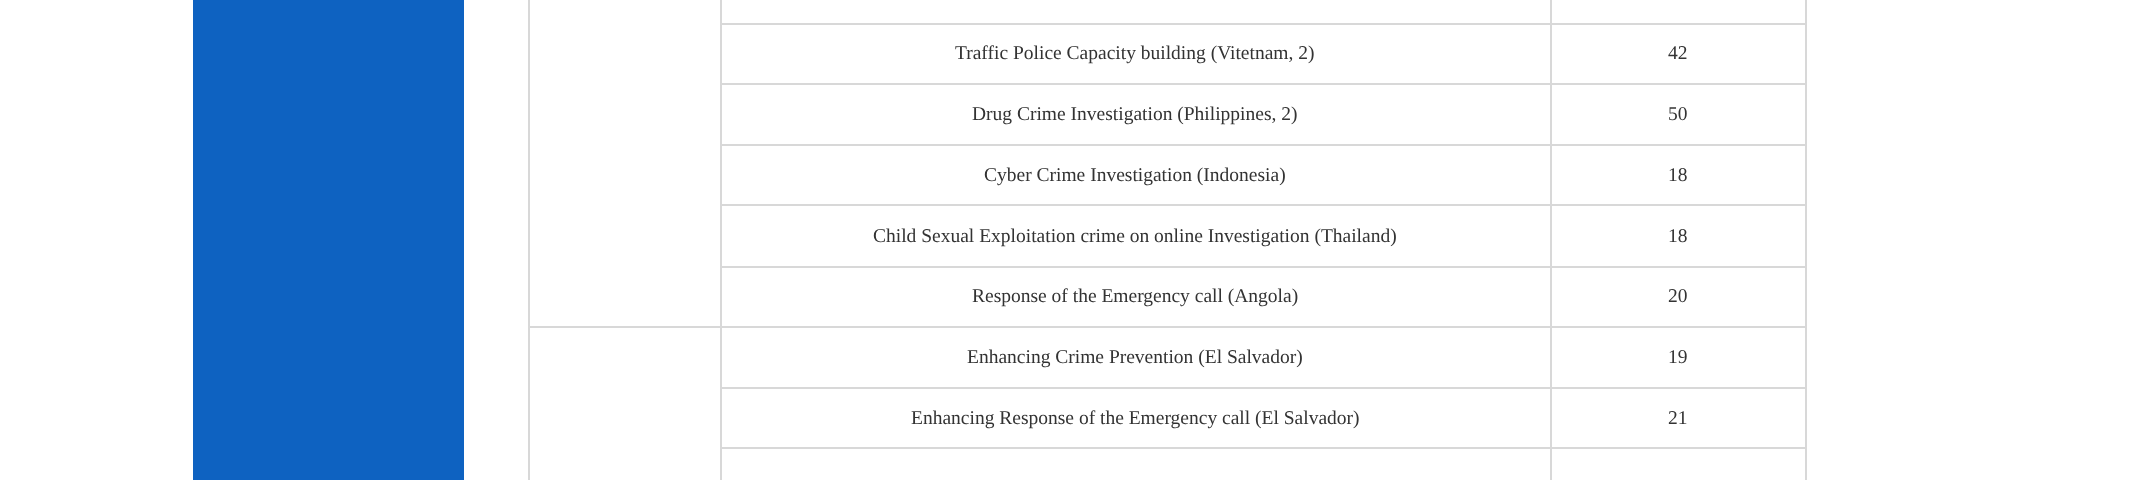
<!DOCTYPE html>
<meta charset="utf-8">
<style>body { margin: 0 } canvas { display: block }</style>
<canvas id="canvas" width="2156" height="480"></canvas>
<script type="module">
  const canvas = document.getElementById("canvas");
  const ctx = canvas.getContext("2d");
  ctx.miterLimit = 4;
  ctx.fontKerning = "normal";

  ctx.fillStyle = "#ffffff";
  ctx.fillRect(0, 0, 2156, 480);
  ctx.fillStyle = "#0e62c1";
  ctx.fillRect(193, 0, 271, 480);
  ctx.fillStyle = "#d8d8d8";
  ctx.fillRect(1550, 23, 256, 2);
  ctx.fillRect(1550, 83, 256, 2);
  ctx.fillRect(1550, 144, 256, 2);
  ctx.fillRect(1550, 204, 256, 2);
  ctx.fillRect(1550, 266, 256, 2);
  ctx.fillRect(1550, 326, 256, 2);
  ctx.fillRect(1550, 387, 256, 2);
  ctx.fillRect(1550, 447, 256, 2);
  ctx.fillRect(1550, 447, 2, 33);
  ctx.fillRect(720, 447, 831, 2);
  ctx.fillRect(1550, 387, 2, 62);
  ctx.fillRect(720, 387, 831, 2);
  ctx.fillRect(1550, 326, 2, 63);
  ctx.fillRect(720, 326, 831, 2);
  ctx.fillRect(1550, 266, 2, 61);
  ctx.fillRect(720, 266, 831, 2);
  ctx.fillRect(1550, 204, 2, 63);
  ctx.fillRect(720, 204, 831, 2);
  ctx.fillRect(1550, 144, 2, 62);
  ctx.fillRect(720, 144, 831, 2);
  ctx.fillRect(1550, 83, 2, 63);
  ctx.fillRect(720, 83, 831, 2);
  ctx.fillRect(1550, 23, 2, 61);
  ctx.fillRect(720, 23, 831, 2);
  ctx.fillRect(1550, 0, 2, 24);
  ctx.fillRect(720, 447, 2, 33);
  ctx.fillRect(720, 387, 2, 62);
  ctx.fillRect(720, 326, 2, 63);
  ctx.fillRect(528, 326, 194, 2);
  ctx.fillRect(720, 266, 2, 61);
  ctx.fillRect(720, 204, 2, 63);
  ctx.fillRect(720, 144, 2, 62);
  ctx.fillRect(720, 83, 2, 63);
  ctx.fillRect(720, 0, 2, 84);
  ctx.font = "19.5px Liberation Serif";
  ctx.fillStyle = "#333333";
  ctx.fillText("Traffic Police Capacity building (Vitetnam, 2)", 955, 59);
  ctx.fillStyle = "#d8d8d8";
  ctx.fillRect(1805, 447, 2, 33);
  ctx.fillRect(1805, 387, 2, 62);
  ctx.fillRect(1805, 326, 2, 63);
  ctx.fillRect(1805, 266, 2, 61);
  ctx.fillRect(1805, 204, 2, 63);
  ctx.fillRect(1805, 144, 2, 62);
  ctx.fillRect(1805, 83, 2, 63);
  ctx.fillRect(1805, 0, 2, 84);
  ctx.fillStyle = "#333333";
  ctx.fillText("42", 1668, 59);
  ctx.fillText("Drug Crime Investigation (Philippines, 2)", 972, 120);
  ctx.fillText("50", 1668, 120);
  ctx.fillText("Cyber Crime Investigation (Indonesia)", 984, 181);
  ctx.fillText("18", 1668, 181);
  ctx.fillText("Child Sexual Exploitation crime on online Investigation (Thailand)", 873, 242);
  ctx.fillText("18", 1668, 242);
  ctx.fillText("Response of the Emergency call (Angola)", 972, 302);
  ctx.fillText("20", 1668, 302);
  ctx.fillStyle = "#d8d8d8";
  ctx.fillRect(528, 0, 2, 480);
  ctx.fillStyle = "#333333";
  ctx.fillText("Enhancing Crime Prevention (El Salvador)", 967, 363);
  ctx.fillText("19", 1668, 363);
  ctx.fillText("Enhancing Response of the Emergency call (El Salvador)", 911, 424);
  ctx.fillText("21", 1668, 424);
</script>
